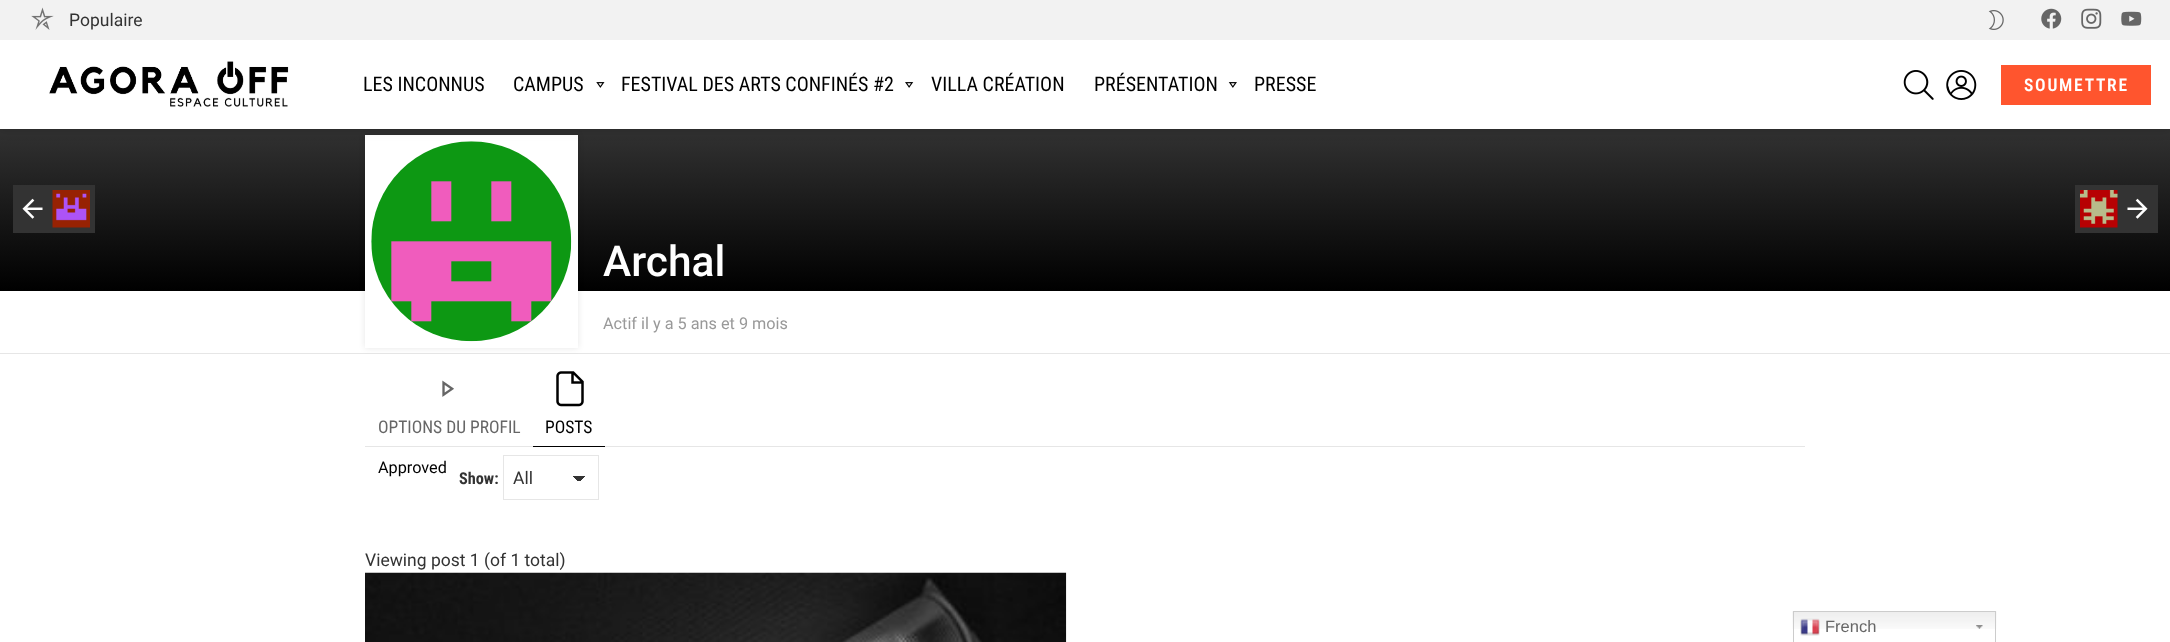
<!DOCTYPE html>
<meta charset="utf-8">
<style>body { margin: 0 } canvas { display: block }</style>
<canvas id="canvas" width="2170" height="642"></canvas>
<script type="module">
  const canvas = document.getElementById("canvas");
  const ctx = canvas.getContext("2d");
  ctx.miterLimit = 4;
  ctx.fontKerning = "normal";
  async function loadImage(src) {
    const img = new Image();
    img.src = src;
    await img.decode();
    return img;
  }
  let gradient;

  ctx.fillStyle = "#ffffff";
  ctx.fillRect(0, 0, 2170, 642);
  ctx.fillStyle = "#303030";
  ctx.fillRect(0, 129, 2170, 6);
  gradient = ctx.createLinearGradient(1085, 135, 1085, 291);
  gradient.addColorStop(0, "#303030");
  gradient.addColorStop(1, "#000000");
  ctx.fillStyle = gradient;
  ctx.fillRect(0, 135, 2170, 156);
  ctx.fillStyle = "#e6e6e6";
  ctx.fillRect(0, 353, 2170, 1);
  ctx.fillStyle = "rgba(0, 0, 0, 0.1)";
  ctx.filter = "blur(3px)";
  ctx.beginPath();
  ctx.rect(365, 135, 213, 213);
  ctx.fill();
  ctx.filter = "none";
  ctx.fillStyle = "#ffffff";
  ctx.fillRect(365, 135, 213, 213);
  ctx.drawImage(await loadImage("img16.png"), 371, 141, 201, 201);
  ctx.fillStyle = "rgba(0, 0, 0, 0.15)";
  ctx.filter = "blur(6px)";
  ctx.beginPath();
  ctx.rect(0, 40, 2170, 89);
  ctx.fill();
  ctx.filter = "none";
  ctx.fillStyle = "#f2f2f2";
  ctx.fillRect(0, 0, 2170, 40);
  ctx.drawImage(await loadImage("img1.png"), 31, 7, 23, 23);
  ctx.font = "17.5px Roboto";
  ctx.fillStyle = "#333333";
  ctx.fillText("Populaire", 69, 26);
  ctx.drawImage(await loadImage("img2.png"), 1988, 10, 16, 20);
  ctx.drawImage(await loadImage("img3.png"), 2041, 8, 21, 21);
  ctx.drawImage(await loadImage("img4.png"), 2081, 8, 21, 21);
  ctx.drawImage(await loadImage("img5.png"), 2121, 11, 21, 15);
  ctx.fillStyle = "#ffffff";
  ctx.fillRect(0, 40, 2170, 89);
  ctx.drawImage(await loadImage("img6.png"), 49, 61, 240, 46);
  ctx.font = "20px Roboto Condensed";
  ctx.fillStyle = "#000000";
  ctx.fillText("LES INCONNUS", 363, 91);
  ctx.fillText("CAMPUS", 513, 91);
  ctx.drawImage(await loadImage("img7.png"), 596, 82, 9, 6);
  ctx.fillText("FESTIVAL DES ARTS CONFINÉS #2", 621, 91);
  ctx.drawImage(await loadImage("img8.png"), 905, 82, 9, 6);
  ctx.fillText("VILLA CRÉATION", 931, 91);
  ctx.fillText("PRÉSENTATION", 1094, 91);
  ctx.drawImage(await loadImage("img9.png"), 1228, 82, 9, 6);
  ctx.fillText("PRESSE", 1254, 91);
  ctx.drawImage(await loadImage("img10.png"), 1903, 70, 31, 30);
  ctx.drawImage(await loadImage("img11.png"), 1946, 70, 31, 30);
  ctx.fillStyle = "#ff552e";
  ctx.fillRect(2001, 65, 150, 40);
  ctx.letterSpacing = "1.75px";
  ctx.font = "600 17.5px Roboto Condensed";
  ctx.fillStyle = "#ffffff";
  ctx.fillText("SOUMETTRE", 2024, 91);
  ctx.fillStyle = "#333333";
  ctx.fillRect(13, 185, 82, 48);
  ctx.drawImage(await loadImage("img12.png"), 22, 198, 21, 21);
  ctx.drawImage(await loadImage("img13.png"), 52, 190, 38, 38);
  ctx.fillRect(2075, 185, 83, 48);
  ctx.drawImage(await loadImage("img14.png"), 2080, 190, 38, 38);
  ctx.drawImage(await loadImage("img15.png"), 2127, 198, 21, 21);
  ctx.letterSpacing = "0px";
  ctx.font = "500 42.5px Roboto";
  ctx.fillStyle = "#ffffff";
  ctx.fillText("Archal", 603, 276);
  ctx.font = "16.25px Roboto";
  ctx.fillStyle = "#999999";
  ctx.fillText("Actif il y a 5 ans et 9 mois", 603, 329);
  ctx.fillStyle = "#e6e6e6";
  ctx.fillRect(365, 446, 1440, 1);
  ctx.drawImage(await loadImage("img17.png"), 442, 380, 12, 17);
  ctx.font = "17.5px Roboto Condensed";
  ctx.fillStyle = "#666666";
  ctx.fillText("OPTIONS DU PROFIL", 378, 433);
  ctx.fillStyle = "#000000";
  ctx.fillRect(533, 446, 72, 1);
  ctx.drawImage(await loadImage("img18.png"), 556, 371, 28, 36);
  ctx.fillText("POSTS", 545, 433);
  ctx.font = "16.25px Roboto";
  ctx.fillText("Approved", 378, 473);
  ctx.font = "bold 16.25px Roboto Condensed";
  ctx.fillStyle = "#333333";
  ctx.fillText("Show:", 459, 484);
  gradient = ctx.createLinearGradient(579, 476, 585, 482);
  gradient.addColorStop(0.5, "#333333");
  gradient.addColorStop(0.5, "#ffffff");
  ctx.fillStyle = gradient;
  ctx.fillRect(579, 476, 6, 5);
  gradient = ctx.createLinearGradient(573, 482, 578, 476);
  gradient.addColorStop(0.5, "#ffffff");
  gradient.addColorStop(0.5, "#333333");
  ctx.fillStyle = gradient;
  ctx.fillRect(573, 476, 6, 5);
  ctx.strokeStyle = "#e6e6e6";
  ctx.strokeRect(503.5, 455.5, 95, 44);
  ctx.font = "17.5px Roboto";
  ctx.fillStyle = "#333333";
  ctx.fillText("All", 513, 484);
  ctx.fillText("Viewing post 1 (of 1 total)", 365, 566);
  ctx.drawImage(await loadImage("img19.png"), 365, 572, 702, 70);
  ctx.drawImage(await loadImage("img20.png"), 1792, 611, 205, 18);
  ctx.drawImage(await loadImage("img21.png"), 1976, 625, 7, 4);
  ctx.strokeStyle = "#cccccc";
  ctx.strokeRect(1793.5, 611.5, 202, 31);
  ctx.drawImage(await loadImage("img22.png"), 1800, 618, 20, 18);
  ctx.font = "16.5px Liberation Sans";
  ctx.fillStyle = "#666666";
  ctx.fillText("French", 1825, 632);
</script>
